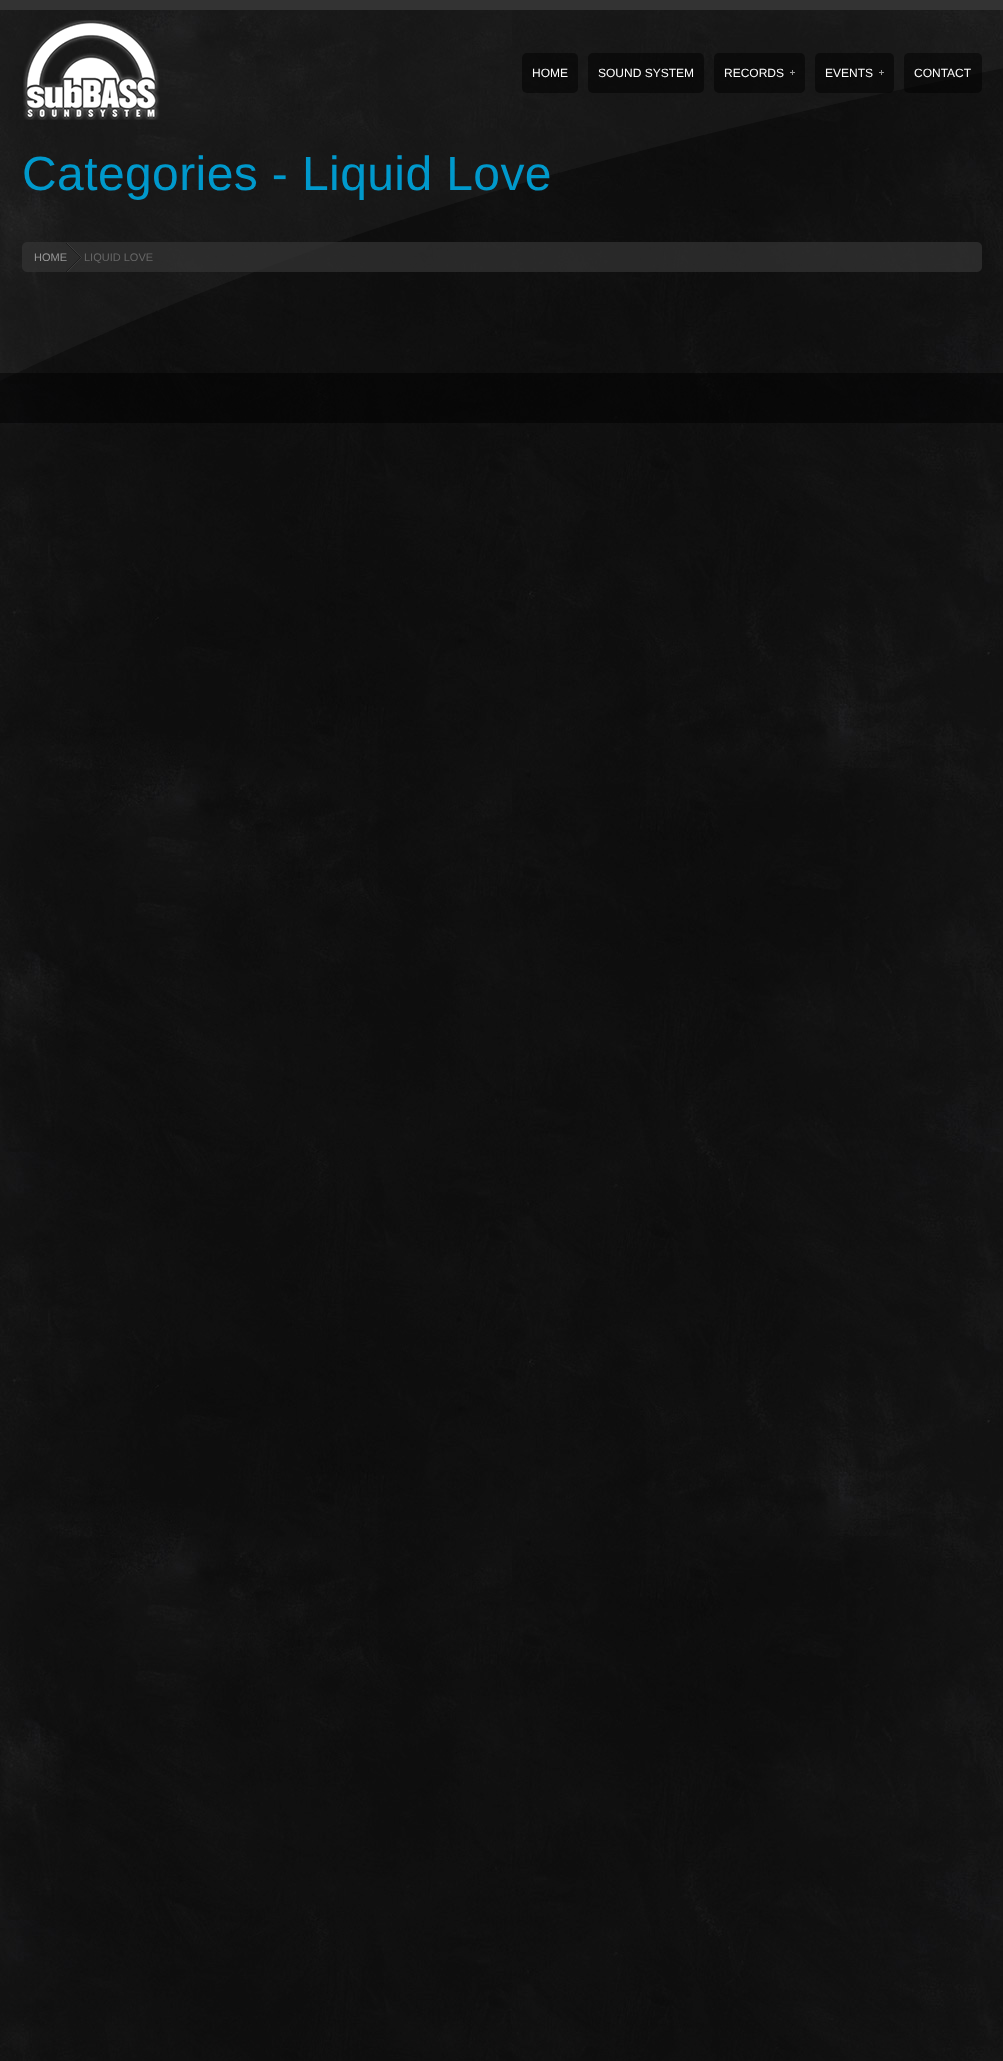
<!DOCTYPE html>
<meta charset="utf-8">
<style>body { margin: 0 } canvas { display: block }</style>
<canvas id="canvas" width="1003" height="2061"></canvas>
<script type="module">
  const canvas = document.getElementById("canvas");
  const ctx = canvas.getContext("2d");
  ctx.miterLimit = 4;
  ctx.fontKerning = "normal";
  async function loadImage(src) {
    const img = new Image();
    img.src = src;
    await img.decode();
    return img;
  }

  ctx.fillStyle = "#ffffff";
  ctx.fillRect(0, 0, 1003, 2061);
  ctx.drawImage(await loadImage("img1.png"), 0, 10, 1003, 2051);
  ctx.drawImage(await loadImage("img2.png"), 0, 10, 1003, 371);
  ctx.fillStyle = "#333333";
  ctx.fillRect(0, 0, 1003, 10);
  ctx.drawImage(await loadImage("img3.png"), 23, 20, 137, 100);
  ctx.drawImage(await loadImage("img4.png"), 522, 53, 56, 40);
  ctx.font = "12px Liberation Sans";
  ctx.fillStyle = "#ffffff";
  ctx.fillText("HOME", 532, 77);
  ctx.drawImage(await loadImage("img5.png"), 588, 53, 116, 40);
  ctx.fillText("SOUND SYSTEM", 598, 77);
  ctx.drawImage(await loadImage("img6.png"), 714, 53, 91, 40);
  ctx.fillText("RECORDS", 724, 77);
  ctx.drawImage(await loadImage("img7.png"), 790, 70, 5, 5);
  ctx.drawImage(await loadImage("img8.png"), 815, 53, 79, 40);
  ctx.fillText("EVENTS", 825, 77);
  ctx.drawImage(await loadImage("img9.png"), 879, 70, 5, 5);
  ctx.drawImage(await loadImage("img10.png"), 904, 53, 78, 40);
  ctx.fillText("CONTACT", 914, 77);
  ctx.letterSpacing = "0.4px";
  ctx.font = "48px Liberation Sans";
  ctx.fillStyle = "#0099cc";
  ctx.fillText("Categories - Liquid Love", 22, 190);
  ctx.drawImage(await loadImage("img11.png"), 22, 242, 960, 30);
  ctx.drawImage(await loadImage("img12.png"), 66, 243, 16, 29);
  ctx.letterSpacing = "0px";
  ctx.font = "11px Liberation Sans";
  ctx.fillStyle = "#999999";
  ctx.fillText("HOME", 34, 261);
  ctx.fillStyle = "#666666";
  ctx.fillText("LIQUID LOVE", 84, 261);
  ctx.fillStyle = "rgba(0, 0, 0, 0.5)";
  ctx.fillRect(0, 373, 1003, 50);
</script>
